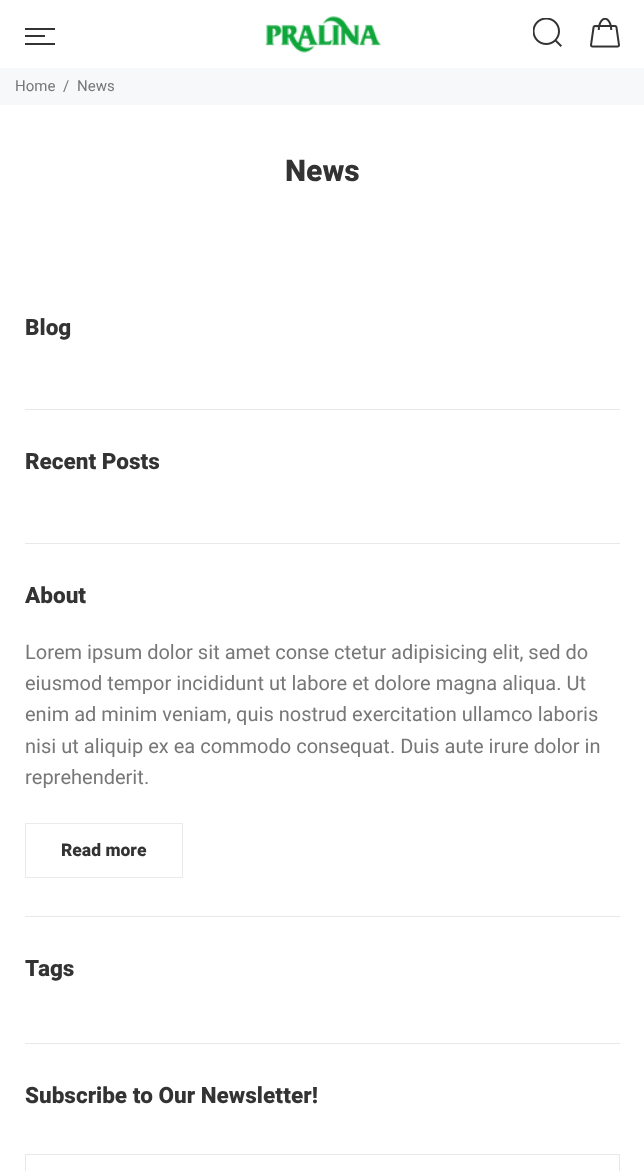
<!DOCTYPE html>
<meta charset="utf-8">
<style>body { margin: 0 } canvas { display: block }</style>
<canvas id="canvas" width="644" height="1171"></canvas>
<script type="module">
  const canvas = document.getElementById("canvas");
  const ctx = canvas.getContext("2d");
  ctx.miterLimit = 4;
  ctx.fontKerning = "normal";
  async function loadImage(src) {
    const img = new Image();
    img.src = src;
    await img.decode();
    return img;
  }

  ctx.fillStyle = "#ffffff";
  ctx.fillRect(0, 0, 644, 1171);
  ctx.fillStyle = "#333333";
  ctx.fillRect(25, 28, 30, 2);
  ctx.fillRect(25, 35, 20, 2);
  ctx.fillRect(25, 43, 30, 2);
  ctx.drawImage(await loadImage("img1.png"), 265, 16, 117, 37);
  ctx.drawImage(await loadImage("img2.png"), 533, 18, 29, 29);
  ctx.drawImage(await loadImage("img3.png"), 590, 18, 30, 30);
  ctx.fillStyle = "#f7f8fa";
  ctx.fillRect(0, 68, 644, 37);
  ctx.font = "15px Heebo";
  ctx.fillStyle = "#777777";
  ctx.fillText("Home", 15, 91);
  ctx.fillText("/", 63, 91);
  ctx.fillText("News", 77, 91);
  ctx.font = "800 30px Heebo";
  ctx.fillStyle = "#333333";
  ctx.fillText("News", 285, 181);
  ctx.fillStyle = "#e9e7e7";
  ctx.fillRect(25, 409, 595, 1);
  ctx.font = "800 22.5px Heebo";
  ctx.fillStyle = "#333333";
  ctx.fillText("Blog", 25, 335);
  ctx.fillStyle = "#e9e7e7";
  ctx.fillRect(25, 543, 595, 1);
  ctx.fillStyle = "#333333";
  ctx.fillText("Recent Posts", 25, 469);
  ctx.fillStyle = "#e9e7e7";
  ctx.fillRect(25, 916, 595, 1);
  ctx.fillStyle = "#333333";
  ctx.fillText("About", 25, 603);
  ctx.font = "20px Heebo";
  ctx.fillStyle = "#777777";
  ctx.fillText("Lorem ipsum dolor sit amet conse ctetur adipisicing elit, sed do", 25, 659);
  ctx.fillText("eiusmod tempor incididunt ut labore et dolore magna aliqua. Ut", 25, 690);
  ctx.fillText("enim ad minim veniam, quis nostrud exercitation ullamco laboris", 25, 721);
  ctx.fillText("nisi ut aliquip ex ea commodo consequat. Duis aute irure dolor in", 25, 753);
  ctx.fillText("reprehenderit.", 25, 784);
  ctx.strokeStyle = "#ebebeb";
  ctx.strokeRect(25.5, 823.5, 157, 54);
  ctx.font = "800 17.5px Heebo";
  ctx.fillStyle = "#333333";
  ctx.fillText("Read more", 61, 856);
  ctx.fillStyle = "#e9e7e7";
  ctx.fillRect(25, 1043, 595, 1);
  ctx.font = "800 22.5px Heebo";
  ctx.fillStyle = "#333333";
  ctx.fillText("Tags", 25, 976);
  ctx.fillText("Subscribe to Our Newsletter!", 25, 1103);
  ctx.strokeStyle = "#e9e7e7";
  ctx.strokeRect(25.5, 1154.5, 594, 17);
</script>
